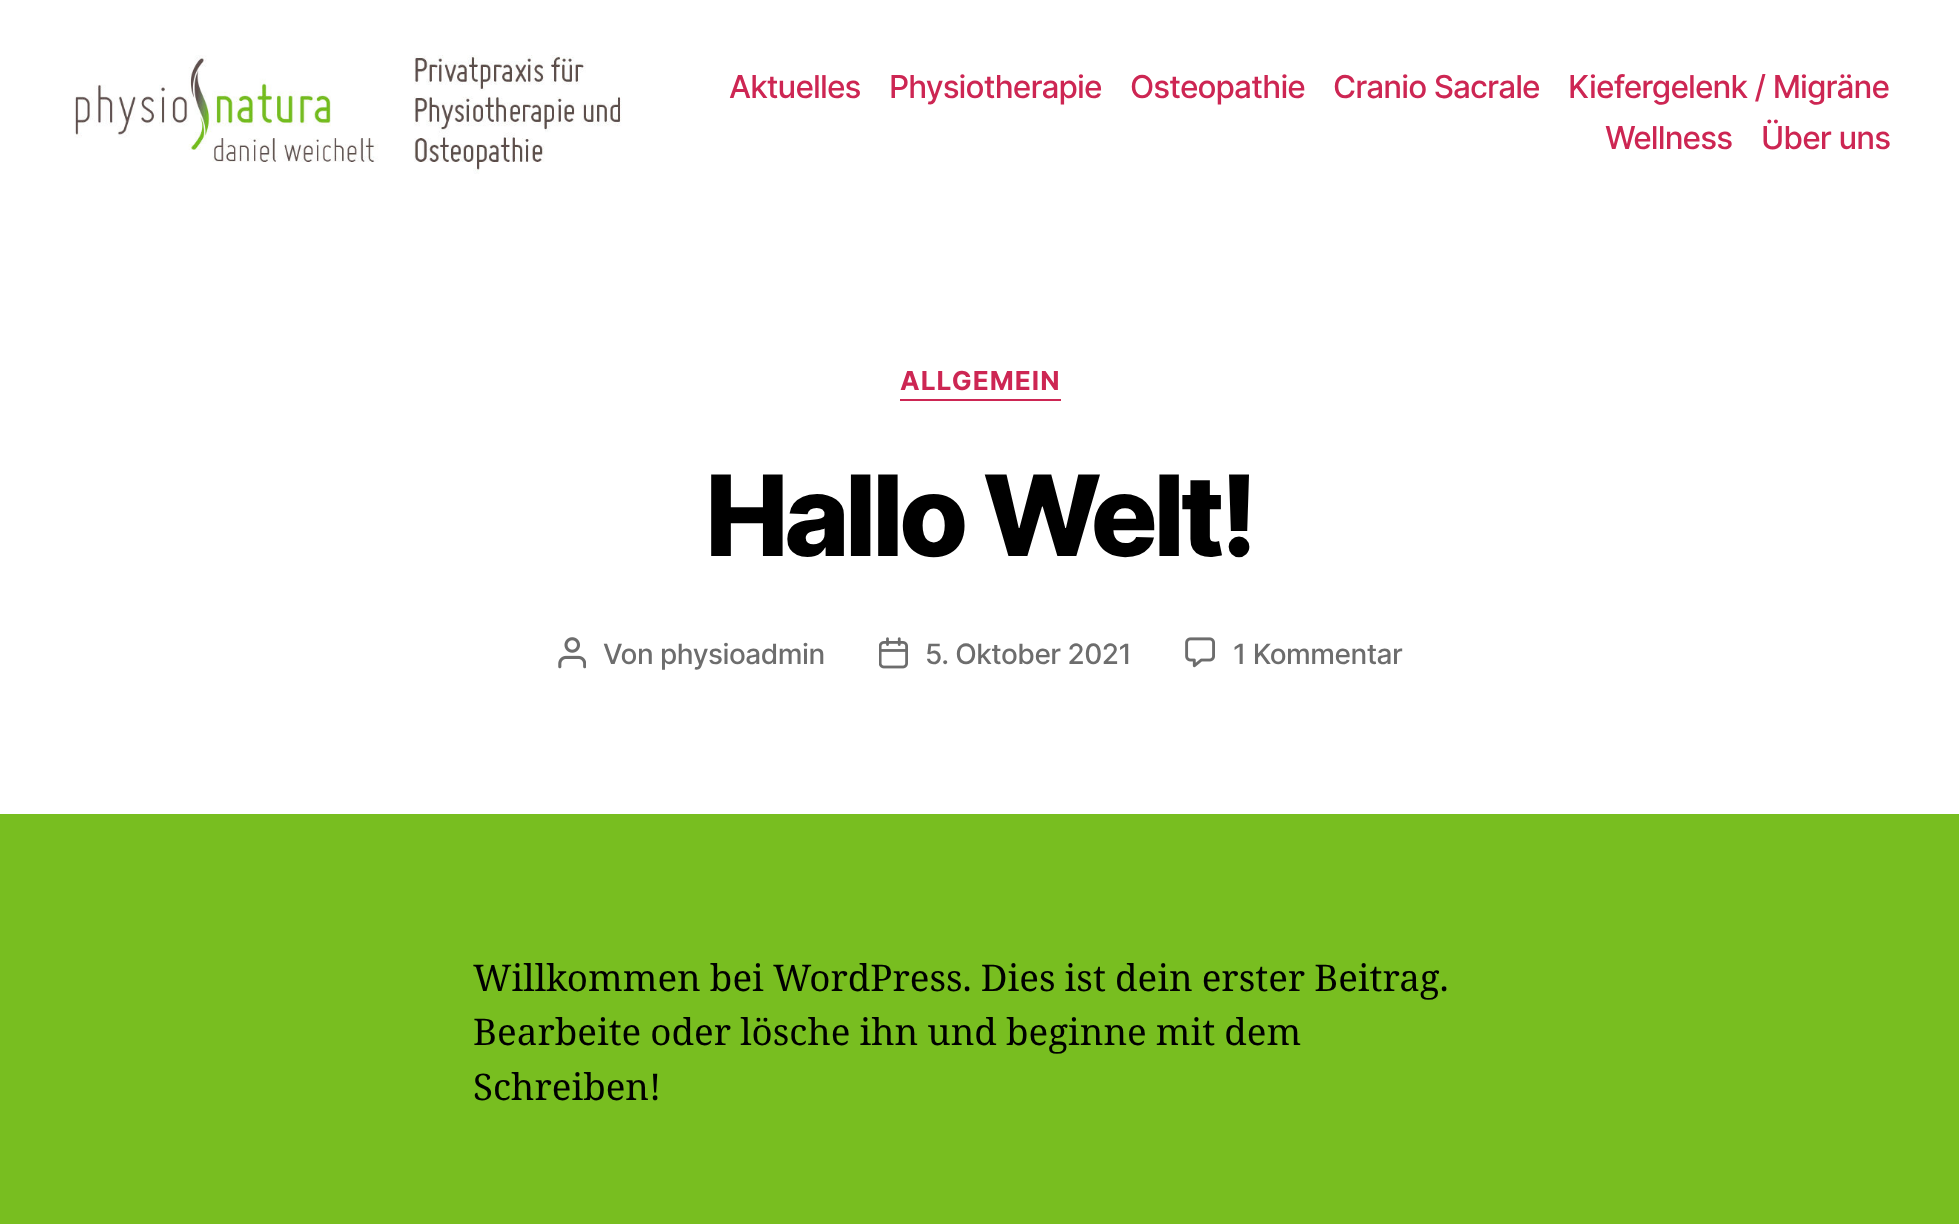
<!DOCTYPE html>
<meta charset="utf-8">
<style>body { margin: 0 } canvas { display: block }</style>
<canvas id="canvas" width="1959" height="1224"></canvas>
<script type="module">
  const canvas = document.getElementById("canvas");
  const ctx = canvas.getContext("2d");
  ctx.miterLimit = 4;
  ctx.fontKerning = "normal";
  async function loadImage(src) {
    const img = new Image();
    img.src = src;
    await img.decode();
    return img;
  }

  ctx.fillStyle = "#78be20";
  ctx.fillRect(0, 0, 1959, 1224);
  ctx.fillStyle = "#ffffff";
  ctx.fillRect(0, 0, 1959, 814);
  ctx.drawImage(await loadImage("img1.png"), 74, 55, 548, 119);
  ctx.letterSpacing = "-0.9px";
  ctx.font = "500 31.5px Inter";
  ctx.fillStyle = "#cd2653";
  ctx.fillText("Aktuelles", 729, 98);
  ctx.fillText("Physiotherapie", 889, 98);
  ctx.fillText("Osteopathie", 1130, 98);
  ctx.fillText("Cranio Sacrale", 1333, 98);
  ctx.fillText("Kiefergelenk / Migräne", 1568, 98);
  ctx.fillText("Wellness", 1605, 149);
  ctx.fillText("Über uns", 1761, 149);
  ctx.fillRect(900, 399, 161, 2);
  ctx.letterSpacing = "1px";
  ctx.font = "bold 26.25px Inter";
  ctx.fillText("ALLGEMEIN", 900, 390);
  ctx.letterSpacing = "-4.75px";
  ctx.font = "800 112px Inter";
  ctx.fillStyle = "#000000";
  ctx.fillText("Hallo Welt!", 705, 556);
  ctx.drawImage(await loadImage("img2.png"), 558, 637, 28, 32);
  ctx.letterSpacing = "-0.5px";
  ctx.font = "500 28px Inter";
  ctx.fillStyle = "#6d6d6d";
  ctx.fillText("Von physioadmin", 603, 664);
  ctx.drawImage(await loadImage("img3.png"), 879, 637, 29, 32);
  ctx.fillText("5. Oktober 2021", 925, 664);
  ctx.drawImage(await loadImage("img4.png"), 1185, 637, 30, 31);
  ctx.fillText("1 Kommentar", 1233, 664);
  ctx.letterSpacing = "0px";
  ctx.wordSpacing = "-0.5px";
  ctx.font = "36.75px Noto Serif";
  ctx.fillStyle = "#000000";
  ctx.fillText("Willkommen bei WordPress. Dies ist dein erster Beitrag.", 473, 991);
  ctx.fillText("Bearbeite oder lösche ihn und beginne mit dem", 473, 1045);
  ctx.wordSpacing = "0px";
  ctx.fillText("Schreiben!", 473, 1100);
</script>
